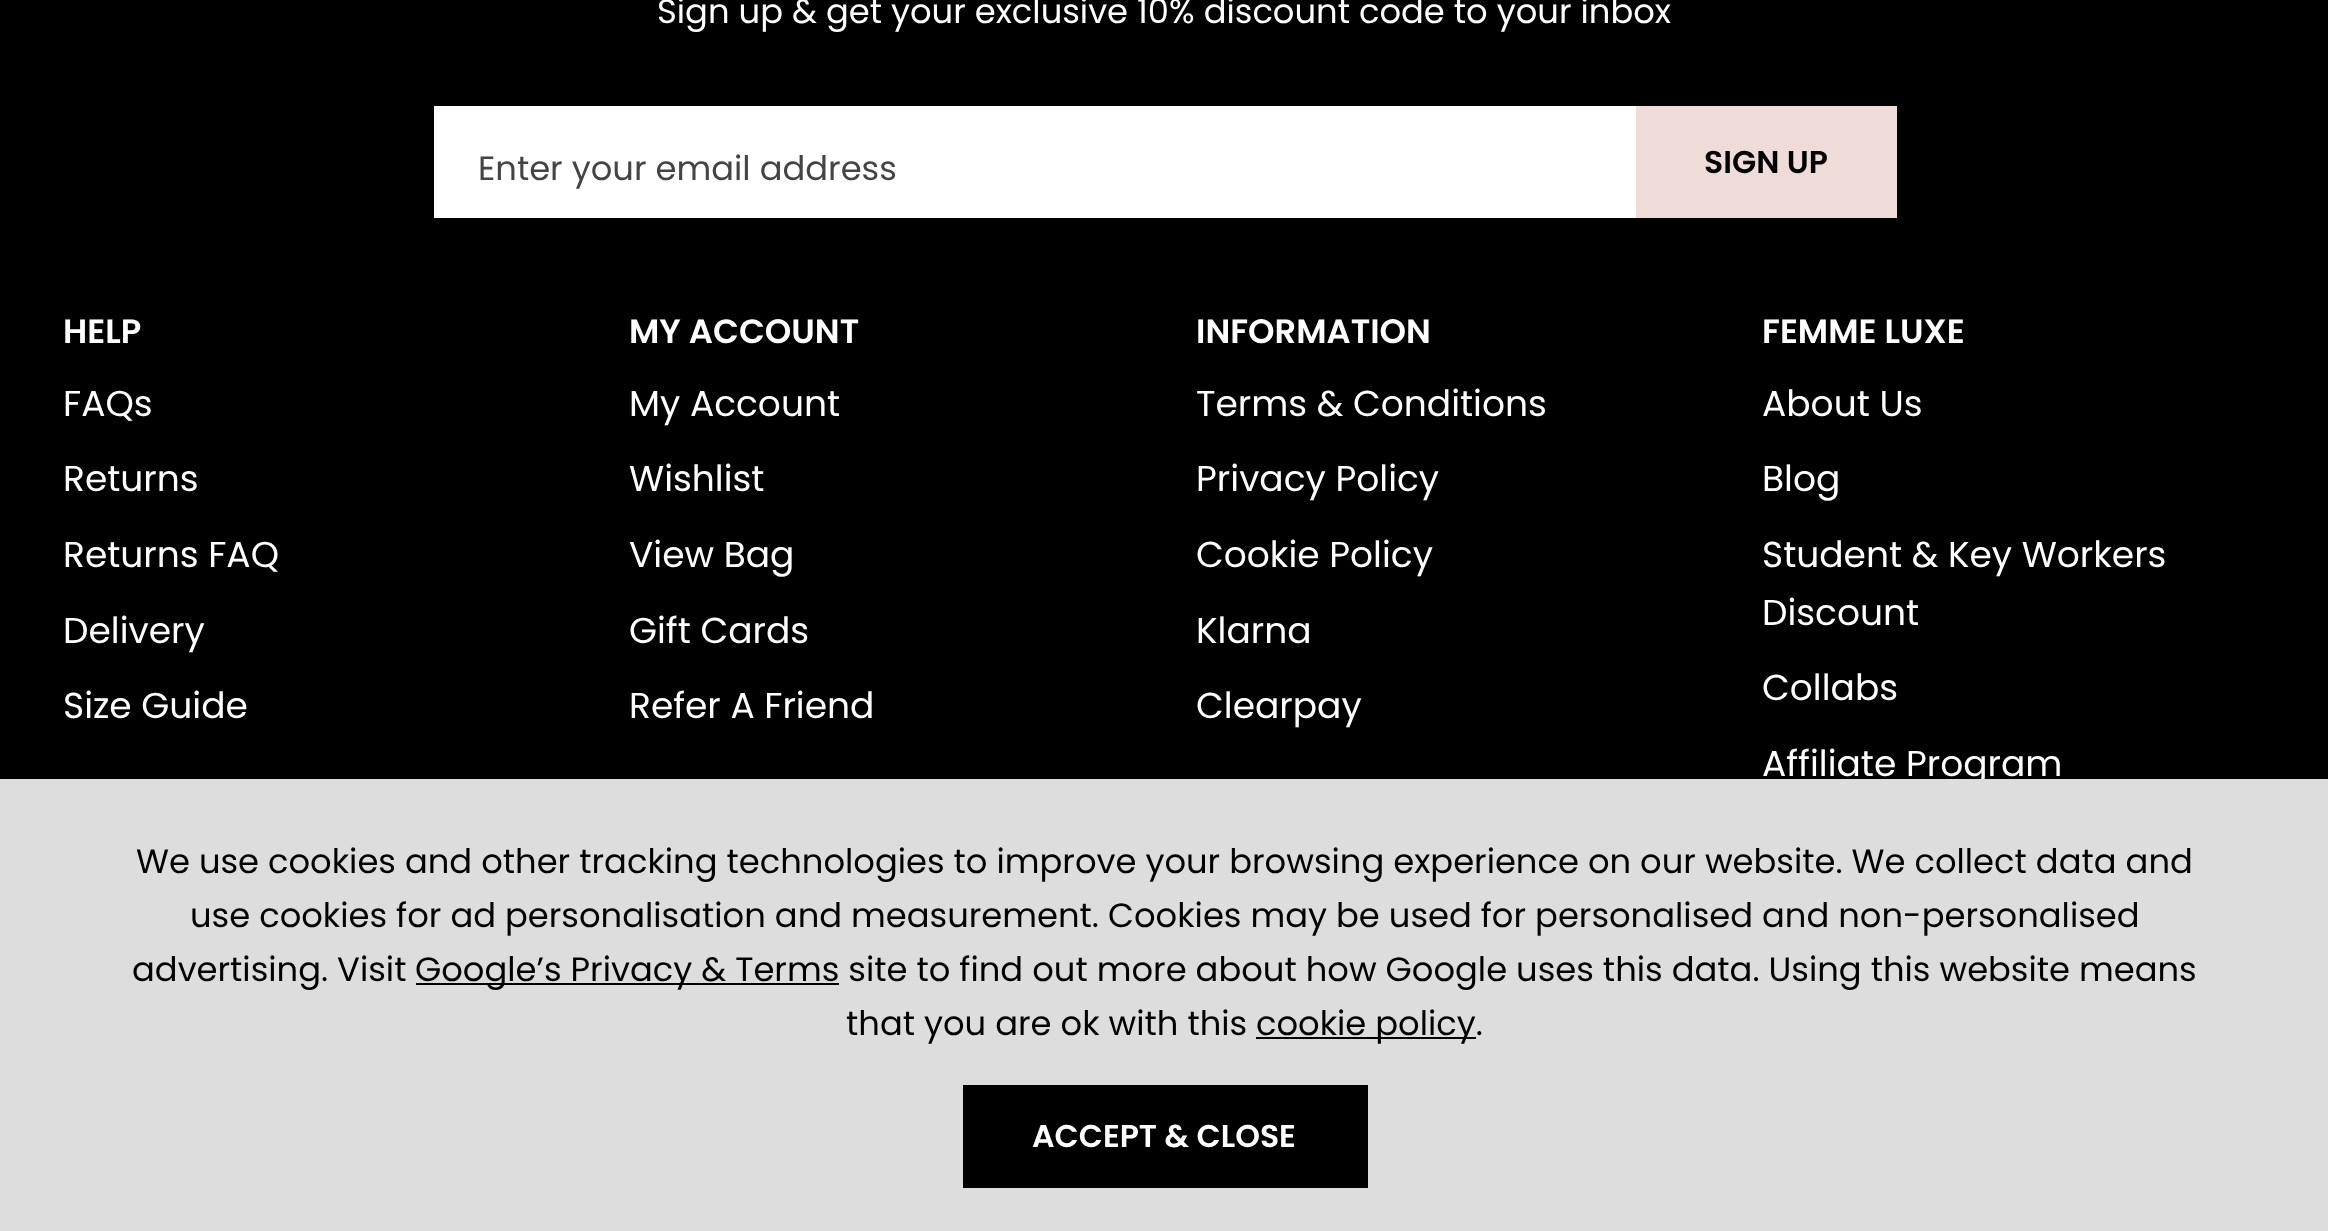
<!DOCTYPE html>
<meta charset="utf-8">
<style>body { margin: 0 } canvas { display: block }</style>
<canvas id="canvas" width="2328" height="1231"></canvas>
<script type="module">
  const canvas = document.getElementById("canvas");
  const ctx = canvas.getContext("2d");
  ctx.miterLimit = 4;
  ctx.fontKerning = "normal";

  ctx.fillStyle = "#000000";
  ctx.fillRect(0, 0, 2328, 1231);
  ctx.font = "33.75px Poppins";
  ctx.fillStyle = "#ffffff";
  ctx.fillText("Sign up & get your exclusive 10% discount code to your inbox", 657, 23);
  ctx.fillRect(434, 106, 1202, 112);
  ctx.fillStyle = "#444444";
  ctx.fillText("Enter your email address", 478, 180);
  ctx.fillStyle = "#efdbd7";
  ctx.fillRect(1636, 106, 261, 112);
  ctx.font = "600 31.5px Poppins";
  ctx.fillStyle = "#000000";
  ctx.fillText("SIGN UP", 1704, 173);
  ctx.font = "600 33.75px Poppins";
  ctx.fillStyle = "#ffffff";
  ctx.fillText("HELP", 63, 343);
  ctx.font = "36px Poppins";
  ctx.fillText("FAQs", 63, 416);
  ctx.fillText("Returns", 63, 491);
  ctx.fillText("Returns FAQ", 63, 567);
  ctx.fillText("Delivery", 63, 643);
  ctx.fillText("Size Guide", 63, 718);
  ctx.font = "600 33.75px Poppins";
  ctx.fillText("MY ACCOUNT", 629, 343);
  ctx.font = "36px Poppins";
  ctx.fillText("My Account", 629, 416);
  ctx.fillText("Wishlist", 629, 491);
  ctx.fillText("View Bag", 629, 567);
  ctx.fillText("Gift Cards", 629, 643);
  ctx.fillText("Refer A Friend", 629, 718);
  ctx.font = "600 33.75px Poppins";
  ctx.fillText("INFORMATION", 1196, 343);
  ctx.font = "36px Poppins";
  ctx.fillText("Terms & Conditions", 1196, 416);
  ctx.fillText("Privacy Policy", 1196, 491);
  ctx.fillText("Cookie Policy", 1196, 567);
  ctx.fillText("Klarna", 1196, 643);
  ctx.fillText("Clearpay", 1196, 718);
  ctx.font = "600 33.75px Poppins";
  ctx.fillText("FEMME LUXE", 1762, 343);
  ctx.font = "36px Poppins";
  ctx.fillText("About Us", 1762, 416);
  ctx.fillText("Blog", 1762, 491);
  ctx.fillText("Student & Key Workers", 1762, 567);
  ctx.fillText("Discount", 1762, 625);
  ctx.fillText("Collabs", 1762, 700);
  ctx.fillText("Affiliate Program", 1762, 776);
  ctx.fillStyle = "#dddddd";
  ctx.fillRect(0, 779, 2328, 452);
  ctx.font = "33.75px Poppins";
  ctx.fillStyle = "#000000";
  ctx.fillText("We use cookies and other tracking technologies to improve your browsing experience on our website. We collect data and", 136, 873);
  ctx.fillText("use cookies for ad personalisation and measurement. Cookies may be used for personalised and non-personalised", 190, 927);
  ctx.fillText("advertising. Visit", 132, 981);
  ctx.fillRect(416, 983, 423, 2);
  ctx.fillText("Google’s Privacy & Terms site to find out more about how Google uses this data. Using this website means", 415, 981);
  ctx.fillText("that you are ok with this", 846, 1035);
  ctx.fillRect(1256, 1037, 220, 2);
  ctx.fillText("cookie policy.", 1256, 1035);
  ctx.fillRect(963, 1085, 405, 103);
  ctx.font = "600 31.5px Poppins";
  ctx.fillStyle = "#ffffff";
  ctx.fillText("ACCEPT & CLOSE", 1032, 1147);
</script>
